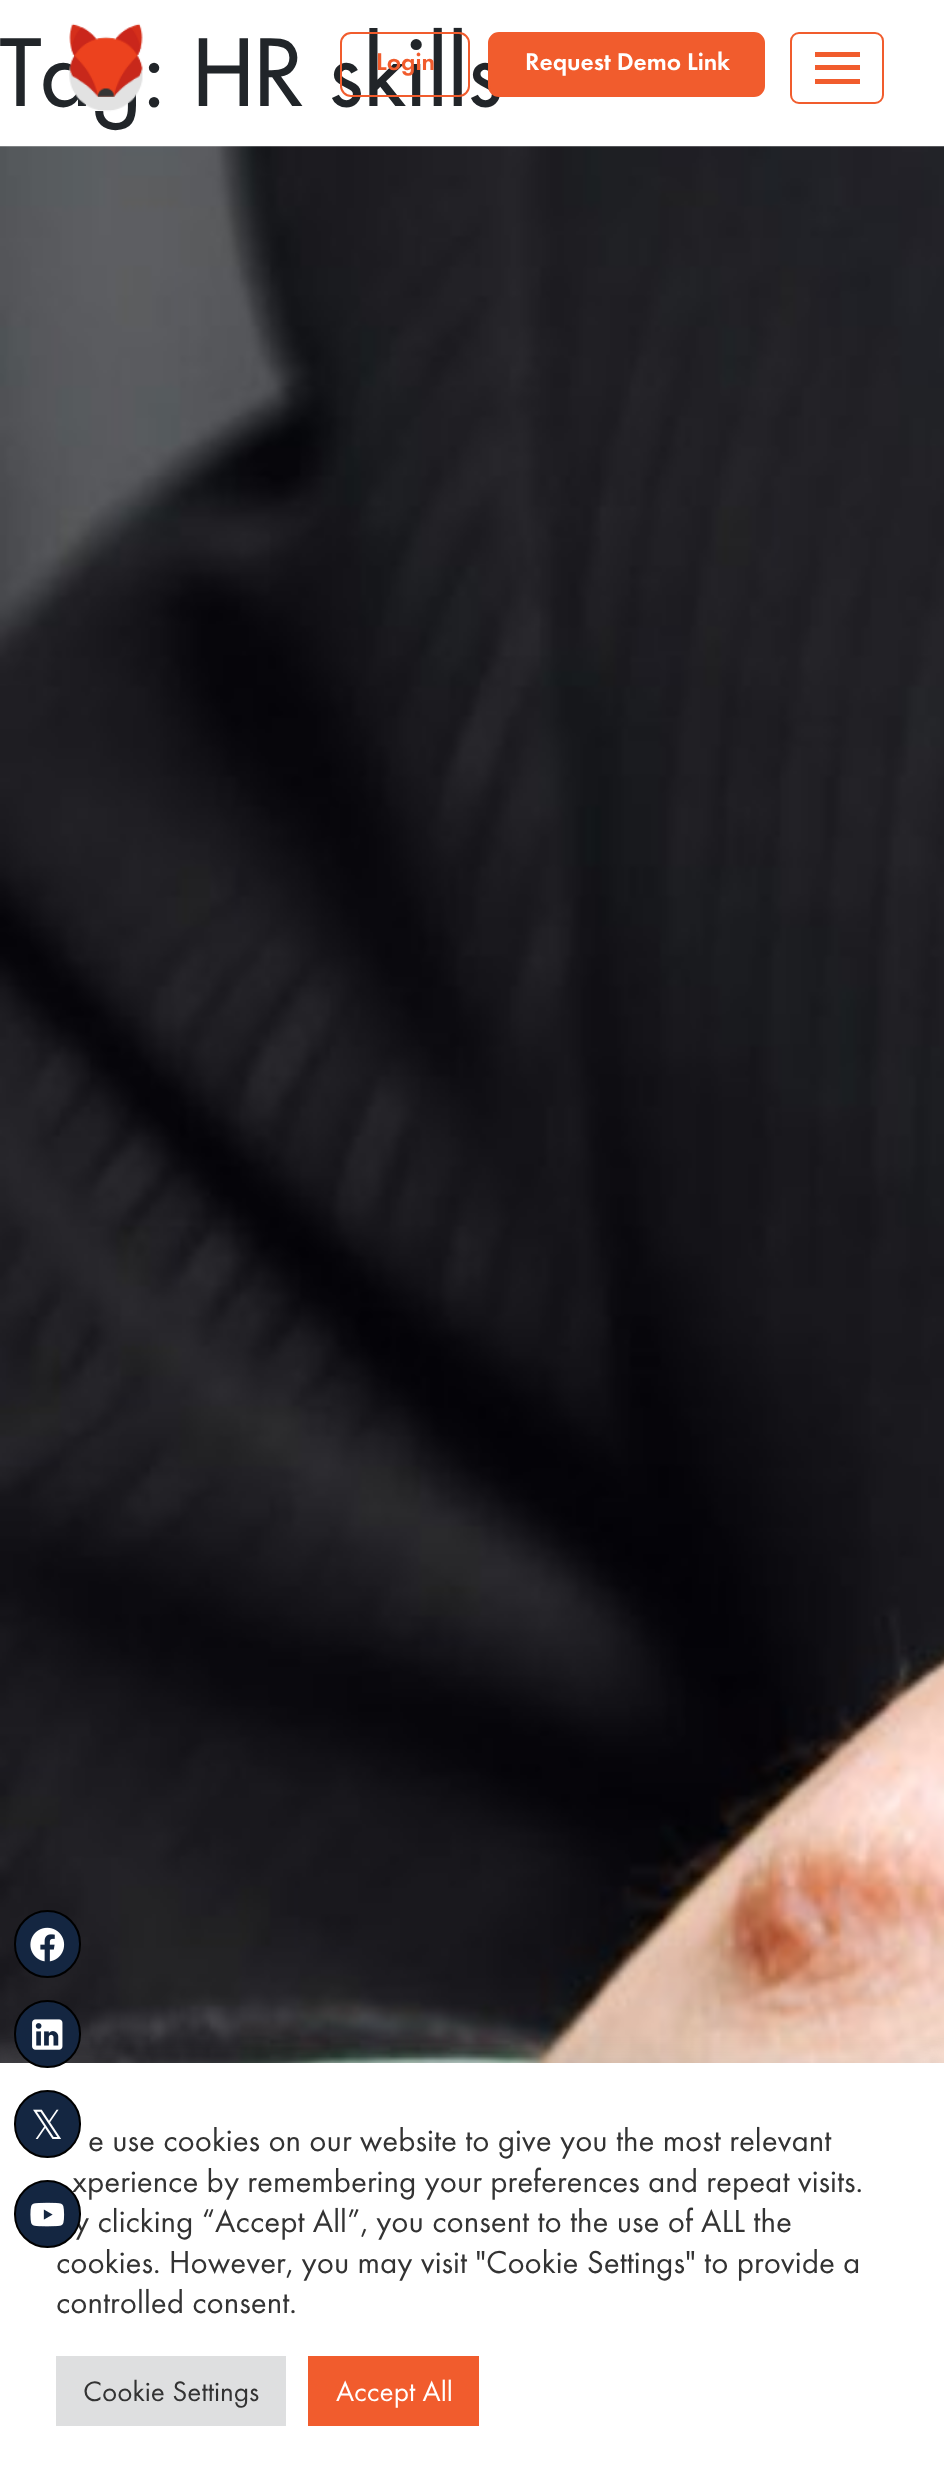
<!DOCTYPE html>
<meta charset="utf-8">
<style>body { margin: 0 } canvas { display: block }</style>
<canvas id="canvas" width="944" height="2492"></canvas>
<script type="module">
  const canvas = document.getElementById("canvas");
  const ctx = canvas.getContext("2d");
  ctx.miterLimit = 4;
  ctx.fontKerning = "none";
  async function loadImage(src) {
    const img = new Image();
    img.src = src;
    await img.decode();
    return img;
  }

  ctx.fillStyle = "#ffffff";
  ctx.fillRect(0, 0, 944, 2492);
  ctx.font = "500 90px Futura";
  ctx.fillStyle = "#212529";
  ctx.fillText("Tag: HR skills", 0, 106);
  ctx.drawImage(await loadImage("img1.png"), 0, 146, 944, 1917);
  ctx.drawImage(await loadImage("img2.png"), 69, 23, 74, 89);
  ctx.beginPath();
  ctx.roundRect(341, 33, 128, 63, 10);
  ctx.strokeStyle = "#f15c2d";
  ctx.lineWidth = 2;
  ctx.stroke();
  ctx.font = "600 25.25px Futura PT";
  ctx.fillStyle = "#f15c2d";
  ctx.fillText("Login", 376, 70);
  ctx.beginPath();
  ctx.roundRect(489, 33, 275, 63, 10);
  ctx.fill();
  ctx.stroke();
  ctx.fillStyle = "#ffffff";
  ctx.fillText("Request Demo Link", 525, 70);
  ctx.beginPath();
  ctx.roundRect(791, 33, 92, 70, 8);
  ctx.stroke();
  ctx.fillStyle = "#f15c2d";
  ctx.fillRect(815, 52, 45, 5);
  ctx.fillRect(815, 65, 45, 5);
  ctx.fillRect(815, 79, 45, 5);
  ctx.fillStyle = "#142641";
  ctx.beginPath();
  ctx.roundRect(15, 1911, 65, 66, 32.5);
  ctx.fill();
  ctx.strokeStyle = "#000000";
  ctx.stroke();
  ctx.drawImage(await loadImage("img3.png"), 30, 1927, 35, 35);
  ctx.fillStyle = "rgba(172, 171, 171, 0.3)";
  ctx.filter = "blur(11px)";
  ctx.beginPath();
  ctx.rect(0, 2061, 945, 430);
  ctx.fill();
  ctx.filter = "none";
  ctx.fillStyle = "#ffffff";
  ctx.fillRect(0, 2063, 944, 429);
  ctx.fillStyle = "#142641";
  ctx.beginPath();
  ctx.roundRect(15, 2001, 65, 66, 32.5);
  ctx.fill();
  ctx.stroke();
  ctx.drawImage(await loadImage("img4.png"), 32, 2019, 31, 31);
  ctx.beginPath();
  ctx.roundRect(15, 2091, 65, 66, 32.5);
  ctx.fill();
  ctx.stroke();
  ctx.font = "40px DejaVu Sans";
  ctx.fillStyle = "#ffffff";
  ctx.fillText("𝕏", 31, 2139);
  ctx.font = "33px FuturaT";
  ctx.fillStyle = "#333333";
  ctx.fillText("xperience by remembering your preferences and repeat visits.", 72, 2192);
  ctx.fillText("y clicking “Accept All”, you consent to the use of ALL the", 74, 2232);
  ctx.fillStyle = "#142641";
  ctx.beginPath();
  ctx.roundRect(15, 2181, 65, 66, 32.5);
  ctx.fill();
  ctx.stroke();
  ctx.drawImage(await loadImage("img5.png"), 30, 2202, 35, 25);
  ctx.fillStyle = "#333333";
  ctx.fillText("e use cookies on our website to give you the most relevant", 88, 2151);
  ctx.fillText("cookies. However, you may visit \"Cookie Settings\" to provide", 56, 2273);
  ctx.fillText("a", 843, 2273);
  ctx.fillText("controlled consent.", 56, 2313);
  ctx.fillStyle = "#dedfe0";
  ctx.fillRect(56, 2356, 230, 70);
  ctx.font = "29.25px FuturaT";
  ctx.fillStyle = "#333333";
  ctx.fillText("Cookie Settings", 83, 2401);
  ctx.fillStyle = "#f15c2d";
  ctx.fillRect(308, 2356, 171, 70);
  ctx.fillStyle = "#ffffff";
  ctx.fillText("Accept All", 336, 2401);
</script>
